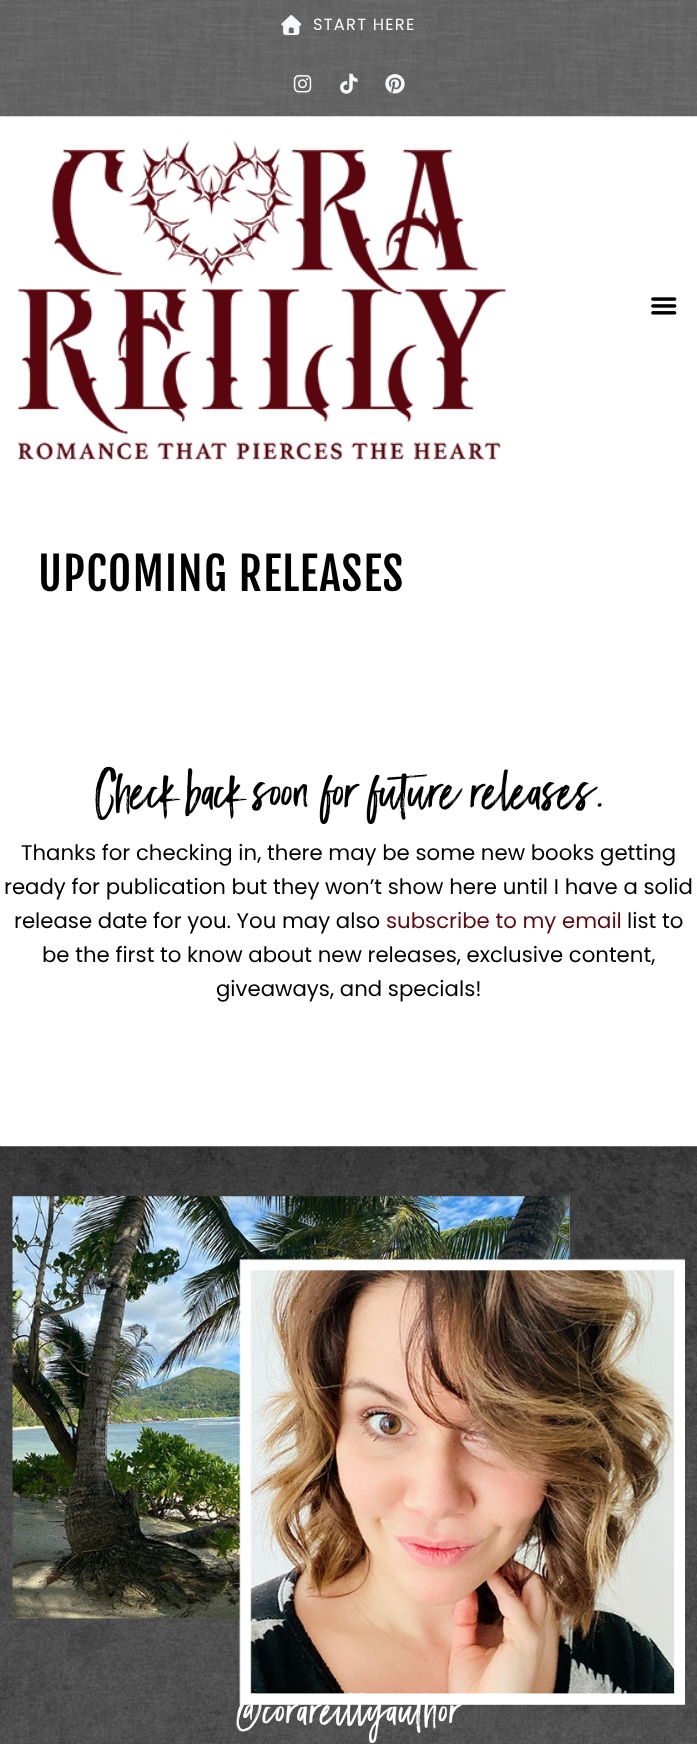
<!DOCTYPE html>
<meta charset="utf-8">
<style>body { margin: 0 } canvas { display: block }</style>
<canvas id="canvas" width="697" height="1744"></canvas>
<script type="module">
  const canvas = document.getElementById("canvas");
  const ctx = canvas.getContext("2d");
  ctx.miterLimit = 4;
  ctx.fontKerning = "normal";
  async function loadImage(src) {
    const img = new Image();
    img.src = src;
    await img.decode();
    return img;
  }

  ctx.fillStyle = "#ffffff";
  ctx.fillRect(0, 0, 697, 1744);
  ctx.drawImage(await loadImage("img1.png"), 0, 0, 697, 117);
  ctx.drawImage(await loadImage("img2.png"), 281, 15, 21, 20);
  ctx.letterSpacing = "1.25px";
  ctx.font = "16.25px Poppins";
  ctx.fillStyle = "#f7f8f9";
  ctx.fillText("START HERE", 313, 30);
  ctx.drawImage(await loadImage("img3.png"), 293, 75, 19, 18);
  ctx.drawImage(await loadImage("img4.png"), 340, 73, 18, 21);
  ctx.drawImage(await loadImage("img5.png"), 385, 74, 20, 20);
  ctx.drawImage(await loadImage("img6.png"), 17, 140, 490, 321);
  ctx.drawImage(await loadImage("img7.png"), 651, 297, 26, 18);
  ctx.font = "45px Fjalla One";
  ctx.fillStyle = "#000000";
  ctx.fillText("UPCOMING RELEASES", 38, 591);
  ctx.letterSpacing = "0px";
  ctx.font = "900 50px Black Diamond";
  ctx.fillText("Check back soon for future releases.", 94, 806);
  ctx.font = "21.25px Poppins";
  ctx.fillText("Thanks for checking in, there may be some new books getting", 21, 860);
  ctx.fillText("ready for publication but they won’t show here until I have a solid", 4, 894);
  ctx.fillText("release date for you. You may also", 14, 928);
  ctx.fillStyle = "#5e0812";
  ctx.fillText("subscribe to my email", 386, 928);
  ctx.fillStyle = "#000000";
  ctx.fillText("list to", 627, 928);
  ctx.fillText("be the first to know about new releases, exclusive content,", 42, 962);
  ctx.fillText("giveaways, and specials!", 216, 996);
  ctx.drawImage(await loadImage("img8.png"), 0, 1146, 697, 598);
  ctx.drawImage(await loadImage("img9.png"), 12, 1196, 673, 509);
  ctx.letterSpacing = "1.25px";
  ctx.font = "900 40px Black Diamond";
  ctx.fillStyle = "#ffffff";
  ctx.fillText("@corareillyauthor", 235, 1722);
</script>
